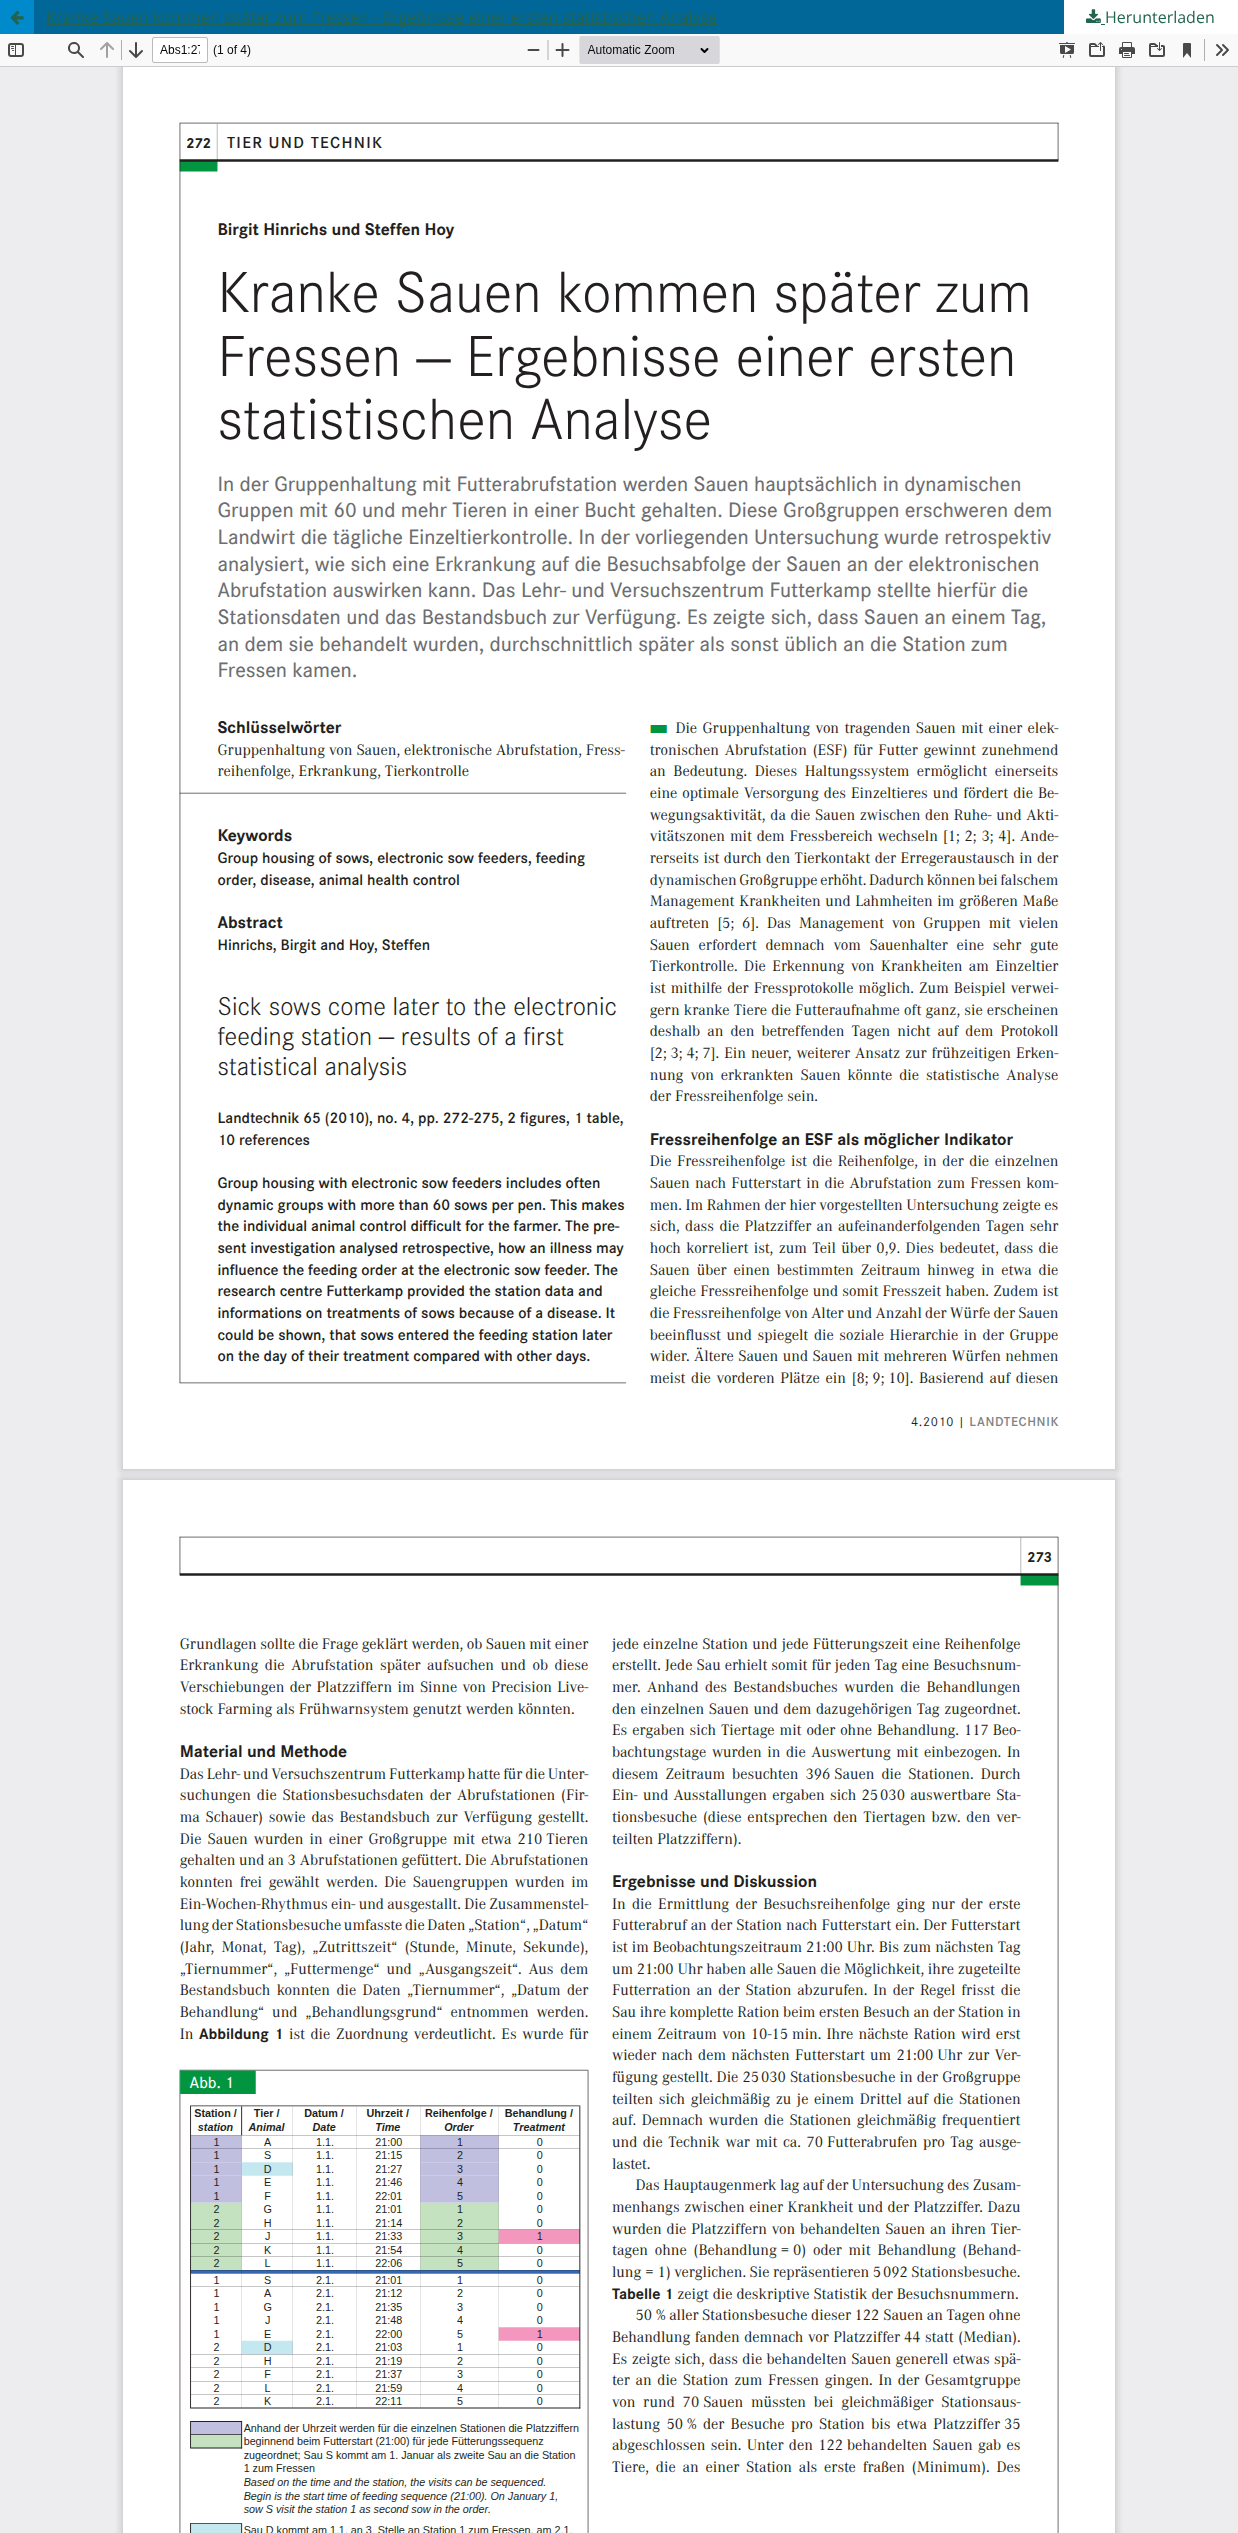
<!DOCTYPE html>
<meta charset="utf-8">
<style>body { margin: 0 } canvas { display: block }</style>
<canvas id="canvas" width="1238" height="2533"></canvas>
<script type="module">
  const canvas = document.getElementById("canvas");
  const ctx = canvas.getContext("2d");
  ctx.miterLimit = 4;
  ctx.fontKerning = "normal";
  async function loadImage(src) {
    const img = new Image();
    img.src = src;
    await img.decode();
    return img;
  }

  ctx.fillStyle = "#ffffff";
  ctx.fillRect(0, 0, 1238, 2533);
  ctx.fillStyle = "#006798";
  ctx.fillRect(34, 0, 1030, 34);
  ctx.fillStyle = "#008acb";
  ctx.fillRect(0, 0, 34, 34);
  ctx.drawImage(await loadImage("img1.png"), 10, 10, 14, 15);
  ctx.fillStyle = "#236451";
  ctx.fillRect(46, 24, 671, 1);
  ctx.font = "16px Open Sans";
  ctx.fillText("Kranke Sauen kommen später zum Fressen - Ergebnisse einer ersten statistischen Analyse", 46, 23);
  ctx.drawImage(await loadImage("img2.png"), 1086, 9, 15, 14);
  ctx.fillText("Herunterladen", 1105, 23);
  ctx.fillRect(1101, 24, 4, 1);
  ctx.drawImage(await loadImage("img3.png"), 0, 34, 1238, 2499);
</script>
